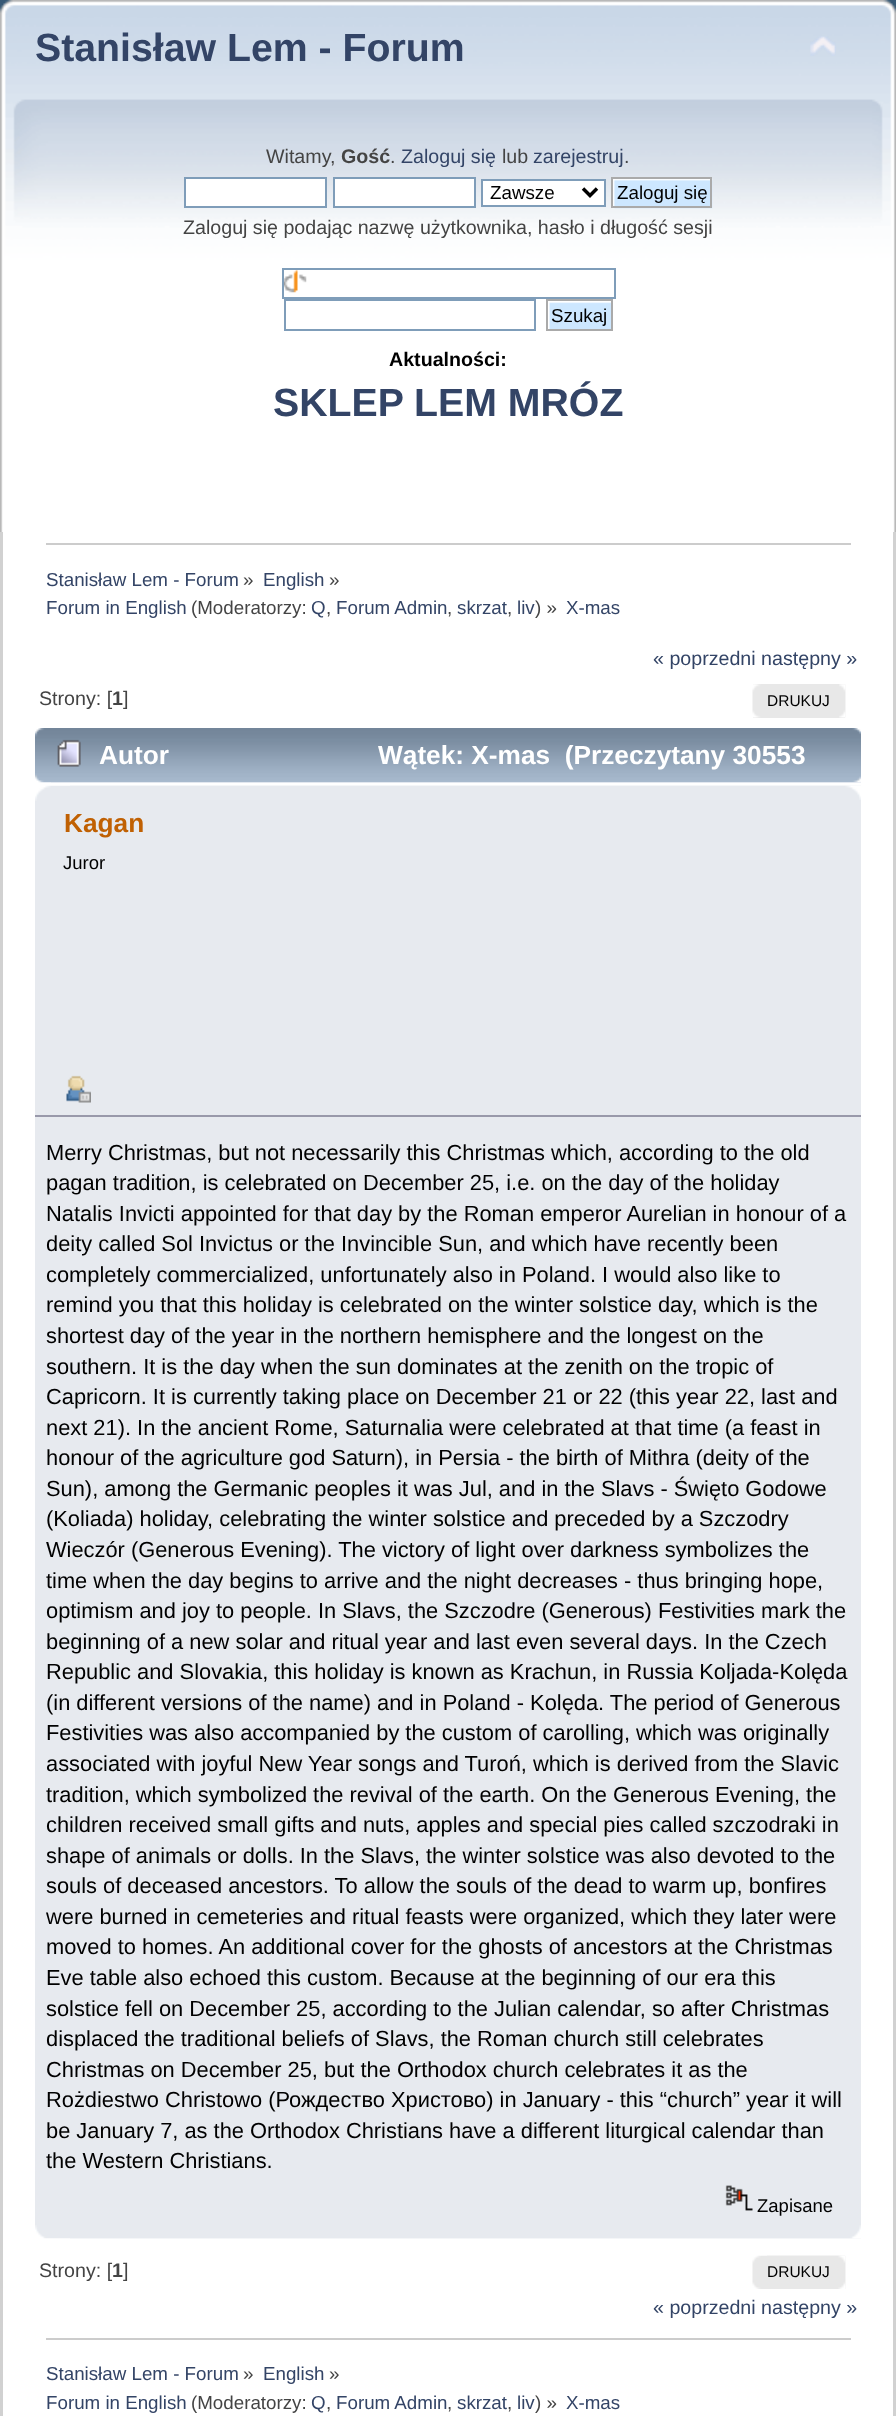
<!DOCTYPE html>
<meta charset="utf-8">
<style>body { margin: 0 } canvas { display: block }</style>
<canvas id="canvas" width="896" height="2416"></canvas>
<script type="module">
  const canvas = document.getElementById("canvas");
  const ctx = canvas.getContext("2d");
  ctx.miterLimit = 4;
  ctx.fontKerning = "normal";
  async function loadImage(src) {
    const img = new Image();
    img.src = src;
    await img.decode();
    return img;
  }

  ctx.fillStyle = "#ffffff";
  ctx.fillRect(0, 0, 896, 2416);
  ctx.drawImage(await loadImage("img1.png"), 0, 0, 872, 532);
  ctx.drawImage(await loadImage("img2.png"), 872, 0, 24, 532);
  ctx.font = "bold 39.25px Liberation Sans";
  ctx.fillStyle = "#334466";
  ctx.fillText("Stanisław Lem - Forum", 35, 61);
  ctx.drawImage(await loadImage("img3.png"), 810, 36, 26, 20);
  ctx.font = "19.65px Liberation Sans";
  ctx.fillStyle = "#444444";
  ctx.fillText("Witamy,", 266, 163);
  ctx.font = "bold 19.65px Liberation Sans";
  ctx.fillText("Gość", 341, 163);
  ctx.font = "19.65px Liberation Sans";
  ctx.fillText(".", 390, 163);
  ctx.fillStyle = "#334466";
  ctx.fillText("Zaloguj się", 401, 163);
  ctx.fillStyle = "#444444";
  ctx.fillText("lub", 502, 163);
  ctx.fillStyle = "#334466";
  ctx.fillText("zarejestruj", 533, 163);
  ctx.fillStyle = "#444444";
  ctx.fillText(".", 624, 163);
  ctx.fillStyle = "#ffffff";
  ctx.beginPath();
  ctx.rect(185, 178, 141, 29);
  ctx.fill();
  ctx.strokeStyle = "#7f9db9";
  ctx.lineWidth = 2;
  ctx.stroke();
  ctx.beginPath();
  ctx.rect(334, 178, 141, 29);
  ctx.fill();
  ctx.stroke();
  ctx.beginPath();
  ctx.rect(482, 180, 123, 26);
  ctx.fill();
  ctx.stroke();
  ctx.beginPath();
  ctx.moveTo(583, 188.5);
  ctx.lineTo(590, 195.5);
  ctx.lineTo(597, 188.5);
  ctx.strokeStyle = "#000000";
  ctx.lineWidth = 3.5;
  ctx.stroke();
  ctx.font = "18.75px Liberation Sans";
  ctx.fillStyle = "#000000";
  ctx.fillText("Zawsze", 490, 199);
  ctx.drawImage(await loadImage("img4.png"), 612, 178, 101, 31);
  ctx.strokeStyle = "#aaaaaa";
  ctx.lineWidth = 2;
  ctx.strokeRect(612, 178, 99, 29);
  ctx.fillText("Zaloguj się", 617, 199);
  ctx.font = "19.65px Liberation Sans";
  ctx.fillStyle = "#444444";
  ctx.fillText("Zaloguj się podając nazwę użytkownika, hasło i długość sesji", 183, 234);
  ctx.drawImage(await loadImage("img5.png"), 284, 270, 23, 23);
  ctx.strokeStyle = "#7f9db9";
  ctx.strokeRect(283, 269, 332, 29);
  ctx.strokeRect(285, 300, 250, 30);
  ctx.drawImage(await loadImage("img6.png"), 548, 301, 63, 28);
  ctx.strokeStyle = "#aaaaaa";
  ctx.strokeRect(547, 300, 65, 30);
  ctx.font = "18.75px Liberation Sans";
  ctx.fillStyle = "#000000";
  ctx.fillText("Szukaj", 551, 322);
  ctx.font = "bold 19.65px Liberation Sans";
  ctx.fillText("Aktualności:", 389, 366);
  ctx.font = "bold 39.25px Liberation Sans";
  ctx.fillStyle = "#334466";
  ctx.fillText("SKLEP LEM MRÓZ", 273, 416);
  ctx.fillStyle = "#d1d1d1";
  ctx.fillRect(0, 532, 3, 1884);
  ctx.fillRect(893, 532, 3, 1884);
  ctx.fillStyle = "#cccccc";
  ctx.fillRect(46, 543, 805, 2);
  ctx.font = "18.75px Liberation Sans";
  ctx.fillStyle = "#334466";
  ctx.fillText("Stanisław Lem - Forum", 46, 586);
  ctx.fillStyle = "#444444";
  ctx.fillText("»", 243, 586);
  ctx.fillStyle = "#334466";
  ctx.fillText("English", 263, 586);
  ctx.fillStyle = "#444444";
  ctx.fillText("»", 329, 586);
  ctx.fillStyle = "#334466";
  ctx.fillText("Forum in English", 46, 614);
  ctx.fillStyle = "#444444";
  ctx.fillText("(Moderatorzy:", 191, 614);
  ctx.fillStyle = "#334466";
  ctx.fillText("Q", 311, 614);
  ctx.fillStyle = "#444444";
  ctx.fillText(",", 326, 614);
  ctx.fillStyle = "#334466";
  ctx.fillText("Forum Admin", 336, 614);
  ctx.fillStyle = "#444444";
  ctx.fillText(",", 447, 614);
  ctx.fillStyle = "#334466";
  ctx.fillText("skrzat", 457, 614);
  ctx.fillStyle = "#444444";
  ctx.fillText(",", 507, 614);
  ctx.fillStyle = "#334466";
  ctx.fillText("liv", 517, 614);
  ctx.fillStyle = "#444444";
  ctx.fillText(") »", 535, 614);
  ctx.fillStyle = "#334466";
  ctx.fillText("X-mas", 566, 614);
  ctx.font = "19.65px Liberation Sans";
  ctx.fillText("« poprzedni następny »", 653, 665);
  ctx.fillStyle = "#444444";
  ctx.fillText("Strony: [", 39, 705);
  ctx.font = "bold 19.65px Liberation Sans";
  ctx.fillText("1", 112, 705);
  ctx.font = "19.65px Liberation Sans";
  ctx.fillText("]", 123, 705);
  ctx.fillStyle = "#e8e8e8";
  ctx.fillRect(753, 684, 92, 34);
  ctx.drawImage(await loadImage("img7.png"), 752, 684, 94, 34);
  ctx.drawImage(await loadImage("img8.png"), 839, 684, 7, 34);
  ctx.font = "15.5px Liberation Sans";
  ctx.fillStyle = "#000000";
  ctx.fillText("DRUKUJ", 767, 706);
  ctx.drawImage(await loadImage("img9.png"), 35, 728, 826, 55);
  ctx.drawImage(await loadImage("img10.png"), 51, 728, 810, 55);
  ctx.drawImage(await loadImage("img11.png"), 57, 739, 24, 28);
  ctx.font = "bold 26.25px Liberation Sans";
  ctx.fillStyle = "#ffffff";
  ctx.fillText("Autor", 99, 764);
  ctx.fillText("Wątek: X-mas  (Przeczytany 30553", 378, 764);
  ctx.fillStyle = "#e7eaef";
  ctx.fillRect(35, 801, 826, 1424);
  ctx.drawImage(await loadImage("img12.png"), 35, 785, 826, 16);
  ctx.drawImage(await loadImage("img13.png"), 70, 785, 791, 15);
  ctx.fillStyle = "#c06002";
  ctx.fillText("Kagan", 64, 832);
  ctx.font = "18.5px Liberation Sans";
  ctx.fillStyle = "#000000";
  ctx.fillText("Juror", 63, 869);
  ctx.drawImage(await loadImage("img14.png"), 66, 1075, 25, 28);
  ctx.fillStyle = "#9999aa";
  ctx.fillRect(35, 1115, 826, 2);
  ctx.font = "21.85px Liberation Sans";
  ctx.fillStyle = "#000000";
  ctx.fillText("Merry Christmas, but not necessarily this Christmas which, according to the old", 46, 1160);
  ctx.fillText("pagan tradition, is celebrated on December 25, i.e. on the day of the holiday", 46, 1190);
  ctx.fillText("Natalis Invicti appointed for that day by the Roman emperor Aurelian in honour of a", 46, 1221);
  ctx.fillText("deity called Sol Invictus or the Invincible Sun, and which have recently been", 46, 1251);
  ctx.fillText("completely commercialized, unfortunately also in Poland. I would also like to", 46, 1282);
  ctx.fillText("remind you that this holiday is celebrated on the winter solstice day, which is the", 46, 1312);
  ctx.fillText("shortest day of the year in the northern hemisphere and the longest on the", 46, 1343);
  ctx.fillText("southern. It is the day when the sun dominates at the zenith on the tropic of", 46, 1374);
  ctx.fillText("Capricorn. It is currently taking place on December 21 or 22 (this year 22, last and", 46, 1404);
  ctx.fillText("next 21). In the ancient Rome, Saturnalia were celebrated at that time (a feast in", 46, 1435);
  ctx.fillText("honour of the agriculture god Saturn), in Persia - the birth of Mithra (deity of the", 46, 1465);
  ctx.fillText("Sun), among the Germanic peoples it was Jul, and in the Slavs - Święto Godowe", 46, 1496);
  ctx.fillText("(Koliada) holiday, celebrating the winter solstice and preceded by a Szczodry", 46, 1526);
  ctx.fillText("Wieczór (Generous Evening). The victory of light over darkness symbolizes the", 46, 1557);
  ctx.fillText("time when the day begins to arrive and the night decreases - thus bringing hope,", 46, 1588);
  ctx.fillText("optimism and joy to people. In Slavs, the Szczodre (Generous) Festivities mark the", 46, 1618);
  ctx.fillText("beginning of a new solar and ritual year and last even several days. In the Czech", 46, 1649);
  ctx.fillText("Republic and Slovakia, this holiday is known as Krachun, in Russia Koljada-Kolęda", 46, 1679);
  ctx.fillText("(in different versions of the name) and in Poland - Kolęda. The period of Generous", 46, 1710);
  ctx.fillText("Festivities was also accompanied by the custom of carolling, which was originally", 46, 1740);
  ctx.fillText("associated with joyful New Year songs and Turoń, which is derived from the Slavic", 46, 1771);
  ctx.fillText("tradition, which symbolized the revival of the earth. On the Generous Evening, the", 46, 1802);
  ctx.fillText("children received small gifts and nuts, apples and special pies called szczodraki in", 46, 1832);
  ctx.fillText("shape of animals or dolls. In the Slavs, the winter solstice was also devoted to the", 46, 1863);
  ctx.fillText("souls of deceased ancestors. To allow the souls of the dead to warm up, bonfires", 46, 1893);
  ctx.fillText("were burned in cemeteries and ritual feasts were organized, which they later were", 46, 1924);
  ctx.fillText("moved to homes. An additional cover for the ghosts of ancestors at the Christmas", 46, 1954);
  ctx.fillText("Eve table also echoed this custom. Because at the beginning of our era this", 46, 1985);
  ctx.fillText("solstice fell on December 25, according to the Julian calendar, so after Christmas", 46, 2016);
  ctx.fillText("displaced the traditional beliefs of Slavs, the Roman church still celebrates", 46, 2046);
  ctx.fillText("Christmas on December 25, but the Orthodox church celebrates it as the", 46, 2077);
  ctx.fillText("Rożdiestwo Christowo (Рождество Христово) in January - this “church” year it will", 46, 2107);
  ctx.fillText("be January 7, as the Orthodox Christians have a different liturgical calendar than", 46, 2138);
  ctx.fillText("the Western Christians.", 46, 2168);
  ctx.drawImage(await loadImage("img15.png"), 725, 2185, 28, 26);
  ctx.font = "18.5px Liberation Sans";
  ctx.fillText("Zapisane", 757, 2212);
  ctx.drawImage(await loadImage("img16.png"), 35, 2225, 826, 14);
  ctx.drawImage(await loadImage("img17.png"), 70, 2225, 791, 14);
  ctx.font = "19.65px Liberation Sans";
  ctx.fillStyle = "#444444";
  ctx.fillText("Strony: [", 39, 2277);
  ctx.font = "bold 19.65px Liberation Sans";
  ctx.fillText("1", 112, 2277);
  ctx.font = "19.65px Liberation Sans";
  ctx.fillText("]", 123, 2277);
  ctx.drawImage(await loadImage("img18.png"), 752, 2255, 94, 34);
  ctx.drawImage(await loadImage("img19.png"), 767, 2255, 79, 34);
  ctx.font = "15.5px Liberation Sans";
  ctx.fillStyle = "#000000";
  ctx.fillText("DRUKUJ", 767, 2277);
  ctx.font = "19.65px Liberation Sans";
  ctx.fillStyle = "#334466";
  ctx.fillText("« poprzedni następny »", 653, 2314);
  ctx.fillStyle = "#cccccc";
  ctx.fillRect(46, 2338, 805, 2);
  ctx.font = "18.75px Liberation Sans";
  ctx.fillStyle = "#334466";
  ctx.fillText("Stanisław Lem - Forum", 46, 2380);
  ctx.fillStyle = "#444444";
  ctx.fillText("»", 243, 2380);
  ctx.fillStyle = "#334466";
  ctx.fillText("English", 263, 2380);
  ctx.fillStyle = "#444444";
  ctx.fillText("»", 329, 2380);
  ctx.fillStyle = "#334466";
  ctx.fillText("Forum in English", 46, 2409);
  ctx.fillStyle = "#444444";
  ctx.fillText("(Moderatorzy:", 191, 2409);
  ctx.fillStyle = "#334466";
  ctx.fillText("Q", 311, 2409);
  ctx.fillStyle = "#444444";
  ctx.fillText(",", 326, 2409);
  ctx.fillStyle = "#334466";
  ctx.fillText("Forum Admin", 336, 2409);
  ctx.fillStyle = "#444444";
  ctx.fillText(",", 447, 2409);
  ctx.fillStyle = "#334466";
  ctx.fillText("skrzat", 457, 2409);
  ctx.fillStyle = "#444444";
  ctx.fillText(",", 507, 2409);
  ctx.fillStyle = "#334466";
  ctx.fillText("liv", 517, 2409);
  ctx.fillStyle = "#444444";
  ctx.fillText(") »", 535, 2409);
  ctx.fillStyle = "#334466";
  ctx.fillText("X-mas", 566, 2409);
</script>
